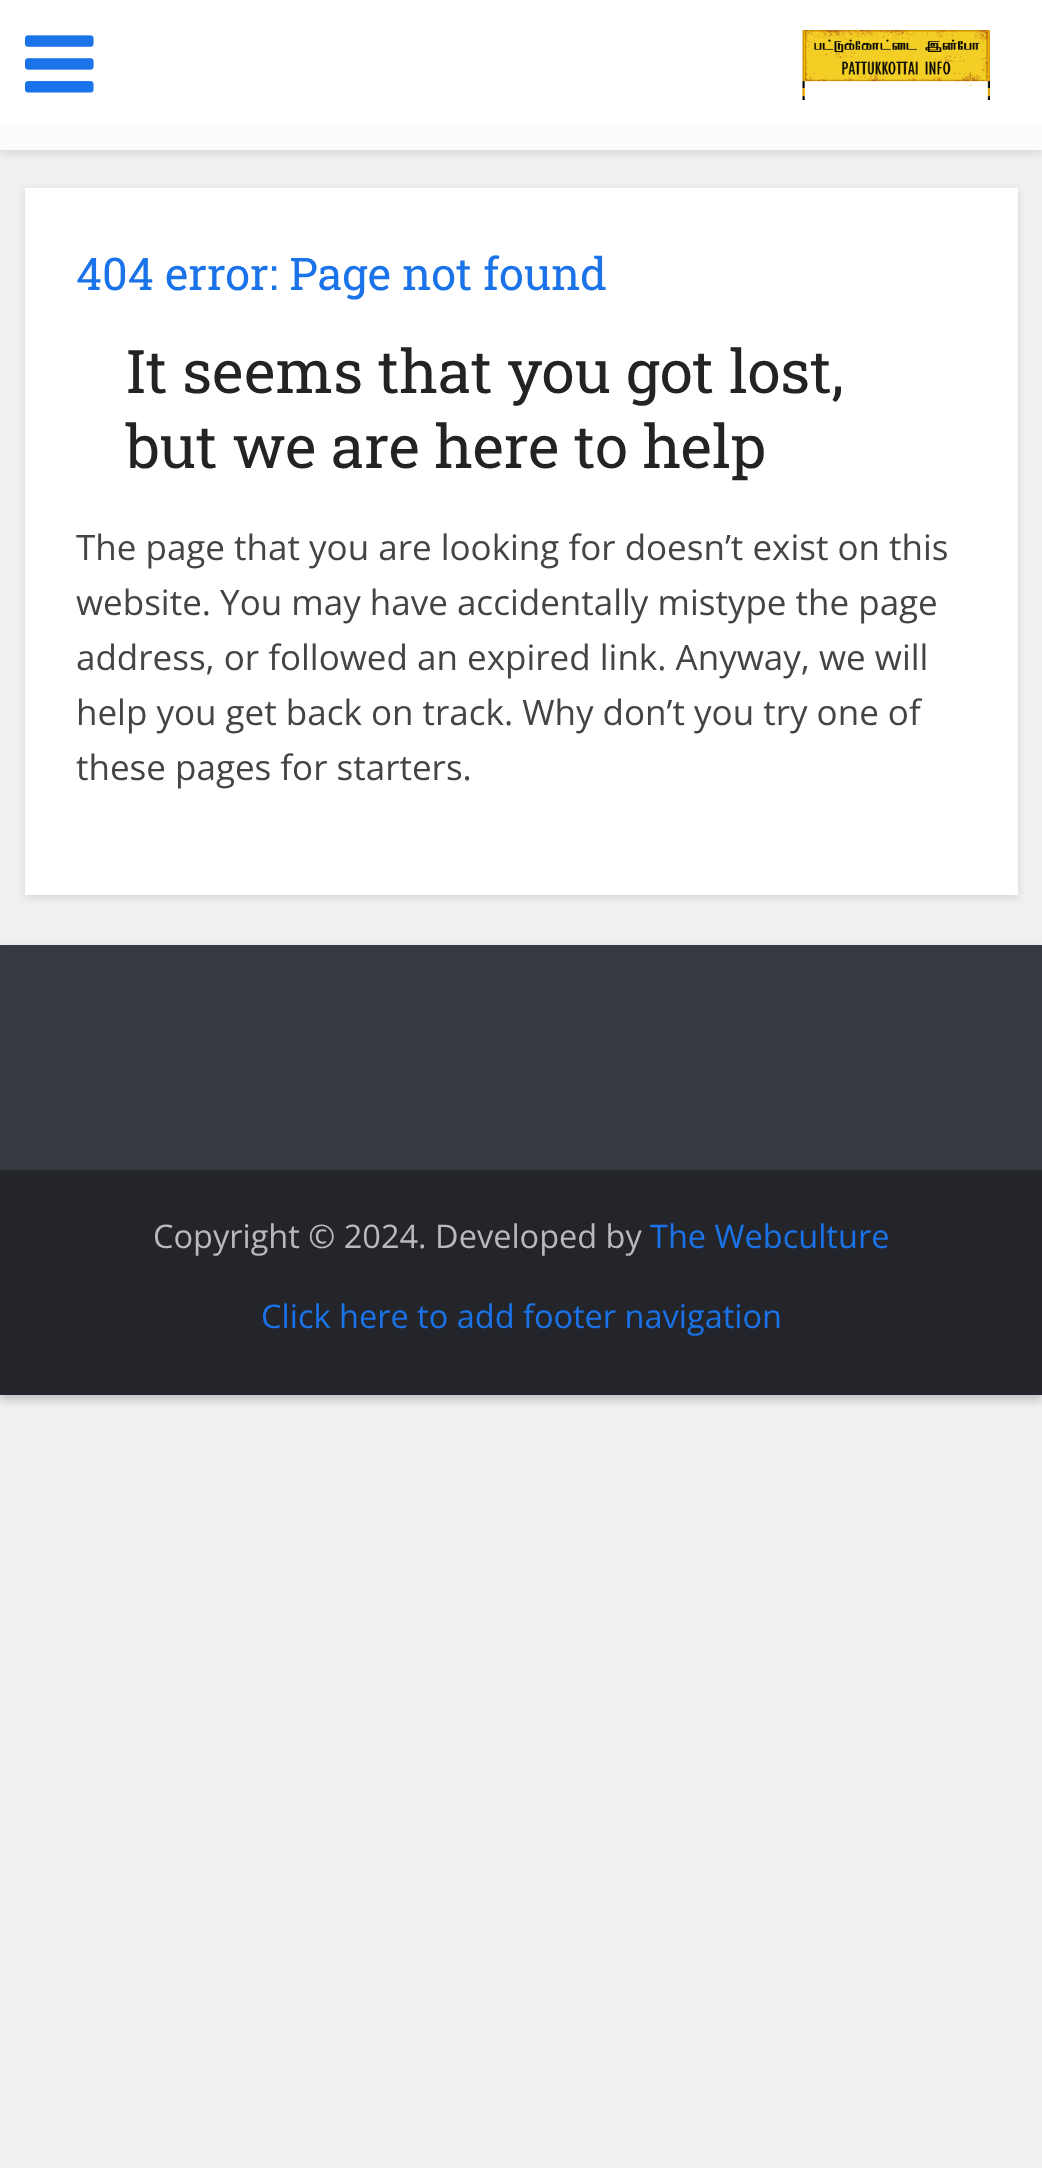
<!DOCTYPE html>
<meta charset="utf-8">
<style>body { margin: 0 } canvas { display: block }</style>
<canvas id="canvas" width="1042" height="2168"></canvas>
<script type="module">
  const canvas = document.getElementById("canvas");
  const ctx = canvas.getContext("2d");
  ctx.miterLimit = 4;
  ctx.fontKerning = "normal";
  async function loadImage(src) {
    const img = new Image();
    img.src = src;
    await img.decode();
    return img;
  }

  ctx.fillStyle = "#f0f0f0";
  ctx.fillRect(0, 0, 1042, 2168);
  ctx.fillStyle = "rgba(0, 0, 0, 0.1)";
  ctx.filter = "blur(4px)";
  ctx.beginPath();
  ctx.rect(0, 3, 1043, 150);
  ctx.fill();
  ctx.filter = "none";
  ctx.fillStyle = "#ffffff";
  ctx.fillRect(0, 0, 1042, 125);
  ctx.drawImage(await loadImage("img1.png"), 25, 35, 69, 58);
  ctx.drawImage(await loadImage("img2.png"), 802, 30, 188, 70);
  ctx.fillStyle = "#fcfcfc";
  ctx.fillRect(0, 125, 1042, 25);
  ctx.fillStyle = "rgba(0, 0, 0, 0.1)";
  ctx.filter = "blur(4px)";
  ctx.beginPath();
  ctx.rect(25, 190, 993, 708);
  ctx.fill();
  ctx.filter = "none";
  ctx.fillStyle = "#ffffff";
  ctx.fillRect(25, 188, 993, 707);
  ctx.font = "45px Roboto Slab";
  ctx.fillStyle = "#1a73e8";
  ctx.fillText("404 error: Page not found", 76, 290);
  ctx.font = "60px Roboto Slab";
  ctx.fillStyle = "#232323";
  ctx.fillText("It seems that you got lost,", 126, 393);
  ctx.fillText("but we are here to help", 126, 468);
  ctx.font = "35px Open Sans";
  ctx.fillStyle = "#444444";
  ctx.fillText("The page that you are looking for doesn’t exist on this", 76, 560);
  ctx.fillText("website. You may have accidentally mistype the page", 76, 615);
  ctx.fillText("address, or followed an expired link. Anyway, we will", 76, 670);
  ctx.fillText("help you get back on track. Why don’t you try one of", 76, 725);
  ctx.fillText("these pages for starters.", 76, 780);
  ctx.fillStyle = "rgba(0, 0, 0, 0.2)";
  ctx.filter = "blur(5px)";
  ctx.beginPath();
  ctx.rect(0, 950, 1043, 450);
  ctx.fill();
  ctx.filter = "none";
  ctx.fillStyle = "#373941";
  ctx.fillRect(0, 945, 1042, 225);
  ctx.fillStyle = "#24252a";
  ctx.fillRect(0, 1170, 1042, 225);
  ctx.font = "32.5px Open Sans";
  ctx.fillStyle = "#b9b9bb";
  ctx.fillText("Copyright © 2024. Developed by", 153, 1248);
  ctx.fillStyle = "#1a73e8";
  ctx.fillText("The Webculture", 650, 1248);
  ctx.fillText("Click here to add footer navigation", 261, 1328);
</script>
